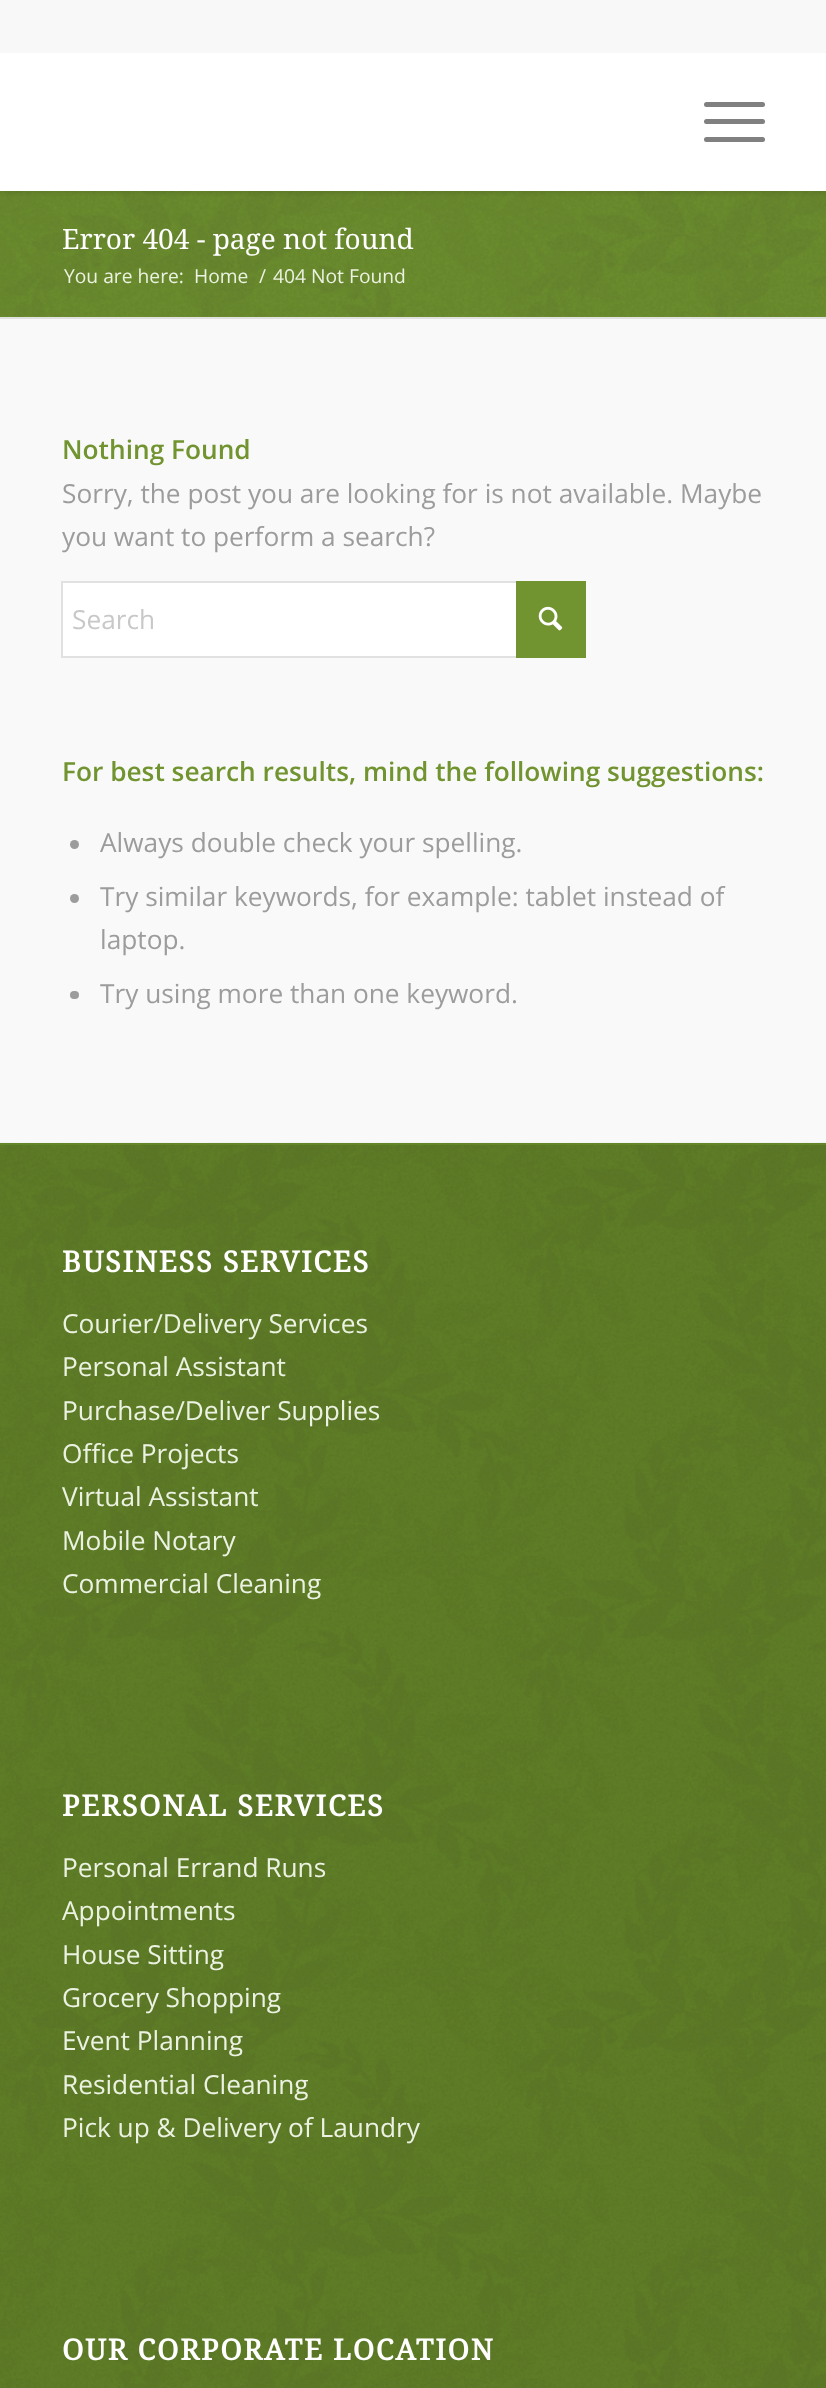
<!DOCTYPE html>
<meta charset="utf-8">
<style>body { margin: 0 } canvas { display: block }</style>
<canvas id="canvas" width="826" height="2388"></canvas>
<script type="module">
  const canvas = document.getElementById("canvas");
  const ctx = canvas.getContext("2d");
  ctx.miterLimit = 4;
  ctx.fontKerning = "normal";
  async function loadImage(src) {
    const img = new Image();
    img.src = src;
    await img.decode();
    return img;
  }

  ctx.fillStyle = "#719430";
  ctx.fillRect(0, 0, 826, 2388);
  ctx.drawImage(await loadImage("img1.png"), 0, 191, 826, 126);
  ctx.fillStyle = "rgba(0, 0, 0, 0.1)";
  ctx.filter = "blur(2px)";
  ctx.beginPath();
  ctx.rect(-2, -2, 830, 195);
  ctx.fill();
  ctx.filter = "none";
  ctx.fillStyle = "#f8f8f8";
  ctx.fillRect(0, 0, 826, 53);
  ctx.fillStyle = "#ffffff";
  ctx.fillRect(0, 53, 826, 138);
  ctx.fillStyle = "#808080";
  ctx.beginPath();
  ctx.roundRect(704, 119, 61, 5, 2.5);
  ctx.fill();
  ctx.beginPath();
  ctx.roundRect(704, 102, 61, 5, 2.5);
  ctx.fill();
  ctx.beginPath();
  ctx.roundRect(704, 137, 61, 5, 2.5);
  ctx.fill();
  ctx.font = "28px Droid Serif";
  ctx.fillStyle = "#ffffff";
  ctx.fillText("Error 404 - page not found", 62, 249);
  ctx.font = "19.25px Open Sans";
  ctx.fillStyle = "#ecf2e1";
  ctx.fillText("You are here:", 64, 283);
  ctx.fillText("Home", 194, 283);
  ctx.fillText("/", 259, 283);
  ctx.fillText("404 Not Found", 273, 283);
  ctx.fillStyle = "#f9f9f9";
  ctx.fillRect(0, 319, 826, 824);
  ctx.fillStyle = "#e1e1e1";
  ctx.fillRect(0, 317, 826, 2);
  ctx.font = "600 26.25px Open Sans";
  ctx.fillStyle = "#719430";
  ctx.fillText("Nothing Found", 62, 459);
  ctx.font = "26.25px Open Sans";
  ctx.fillStyle = "#9c9c9c";
  ctx.fillText("Sorry, the post you are looking for is not available. Maybe", 62, 503);
  ctx.fillText("you want to perform a search?", 62, 546);
  ctx.fillStyle = "#ffffff";
  ctx.fillRect(63, 583, 453, 73);
  ctx.strokeStyle = "#e1e1e1";
  ctx.lineWidth = 2;
  ctx.strokeRect(62, 582, 523, 75);
  ctx.fillStyle = "#719430";
  ctx.fillRect(516, 581, 70, 77);
  ctx.fillStyle = "#c8c8c8";
  ctx.fillText("Search", 72, 629);
  ctx.drawImage(await loadImage("img2.png"), 538, 606, 25, 25);
  ctx.font = "600 26.25px Open Sans";
  ctx.fillStyle = "#719430";
  ctx.fillText("For best search results, mind the following suggestions:", 62, 781);
  ctx.fillStyle = "#9c9c9c";
  ctx.beginPath();
  ctx.arc(74.5, 844.5, 4.5, 0, Math.PI * 2);
  ctx.fill();
  ctx.font = "26.25px Open Sans";
  ctx.fillText("Always double check your spelling.", 100, 852);
  ctx.beginPath();
  ctx.arc(74.5, 898.5, 4.5, 0, Math.PI * 2);
  ctx.fill();
  ctx.fillText("Try similar keywords, for example: tablet instead of", 100, 906);
  ctx.fillText("laptop.", 100, 949);
  ctx.beginPath();
  ctx.roundRect(70, 991, 9, 8, 4);
  ctx.fill();
  ctx.fillText("Try using more than one keyword.", 100, 1003);
  ctx.fillStyle = "#658529";
  ctx.fillRect(0, 1145, 826, 1243);
  ctx.drawImage(await loadImage("img3.png"), 0, 1142, 826, 1246);
  ctx.fillRect(0, 1143, 826, 2);
  ctx.letterSpacing = "1.75px";
  ctx.font = "bold 28.9px Droid Serif";
  ctx.fillStyle = "#ffffff";
  ctx.fillText("BUSINESS SERVICES", 62, 1272);
  ctx.letterSpacing = "0px";
  ctx.font = "26.25px Open Sans";
  ctx.fillStyle = "#ecf2e1";
  ctx.fillText("Courier/Delivery Services", 62, 1333);
  ctx.fillText("Personal Assistant", 62, 1376);
  ctx.fillText("Purchase/Deliver Supplies", 62, 1420);
  ctx.fillText("Office Projects", 62, 1463);
  ctx.fillText("Virtual Assistant", 62, 1506);
  ctx.fillText("Mobile Notary", 62, 1550);
  ctx.fillText("Commercial Cleaning", 62, 1593);
  ctx.letterSpacing = "1.75px";
  ctx.font = "bold 28.9px Droid Serif";
  ctx.fillStyle = "#ffffff";
  ctx.fillText("PERSONAL SERVICES", 62, 1816);
  ctx.letterSpacing = "0px";
  ctx.font = "26.25px Open Sans";
  ctx.fillStyle = "#ecf2e1";
  ctx.fillText("Personal Errand Runs", 62, 1877);
  ctx.fillText("Appointments", 62, 1920);
  ctx.fillText("House Sitting", 62, 1964);
  ctx.fillText("Grocery Shopping", 62, 2007);
  ctx.fillText("Event Planning", 62, 2050);
  ctx.fillText("Residential Cleaning", 62, 2094);
  ctx.fillText("Pick up & Delivery of Laundry", 62, 2137);
  ctx.letterSpacing = "1.75px";
  ctx.font = "bold 28.9px Droid Serif";
  ctx.fillStyle = "#ffffff";
  ctx.fillText("OUR CORPORATE LOCATION", 62, 2360);
</script>
